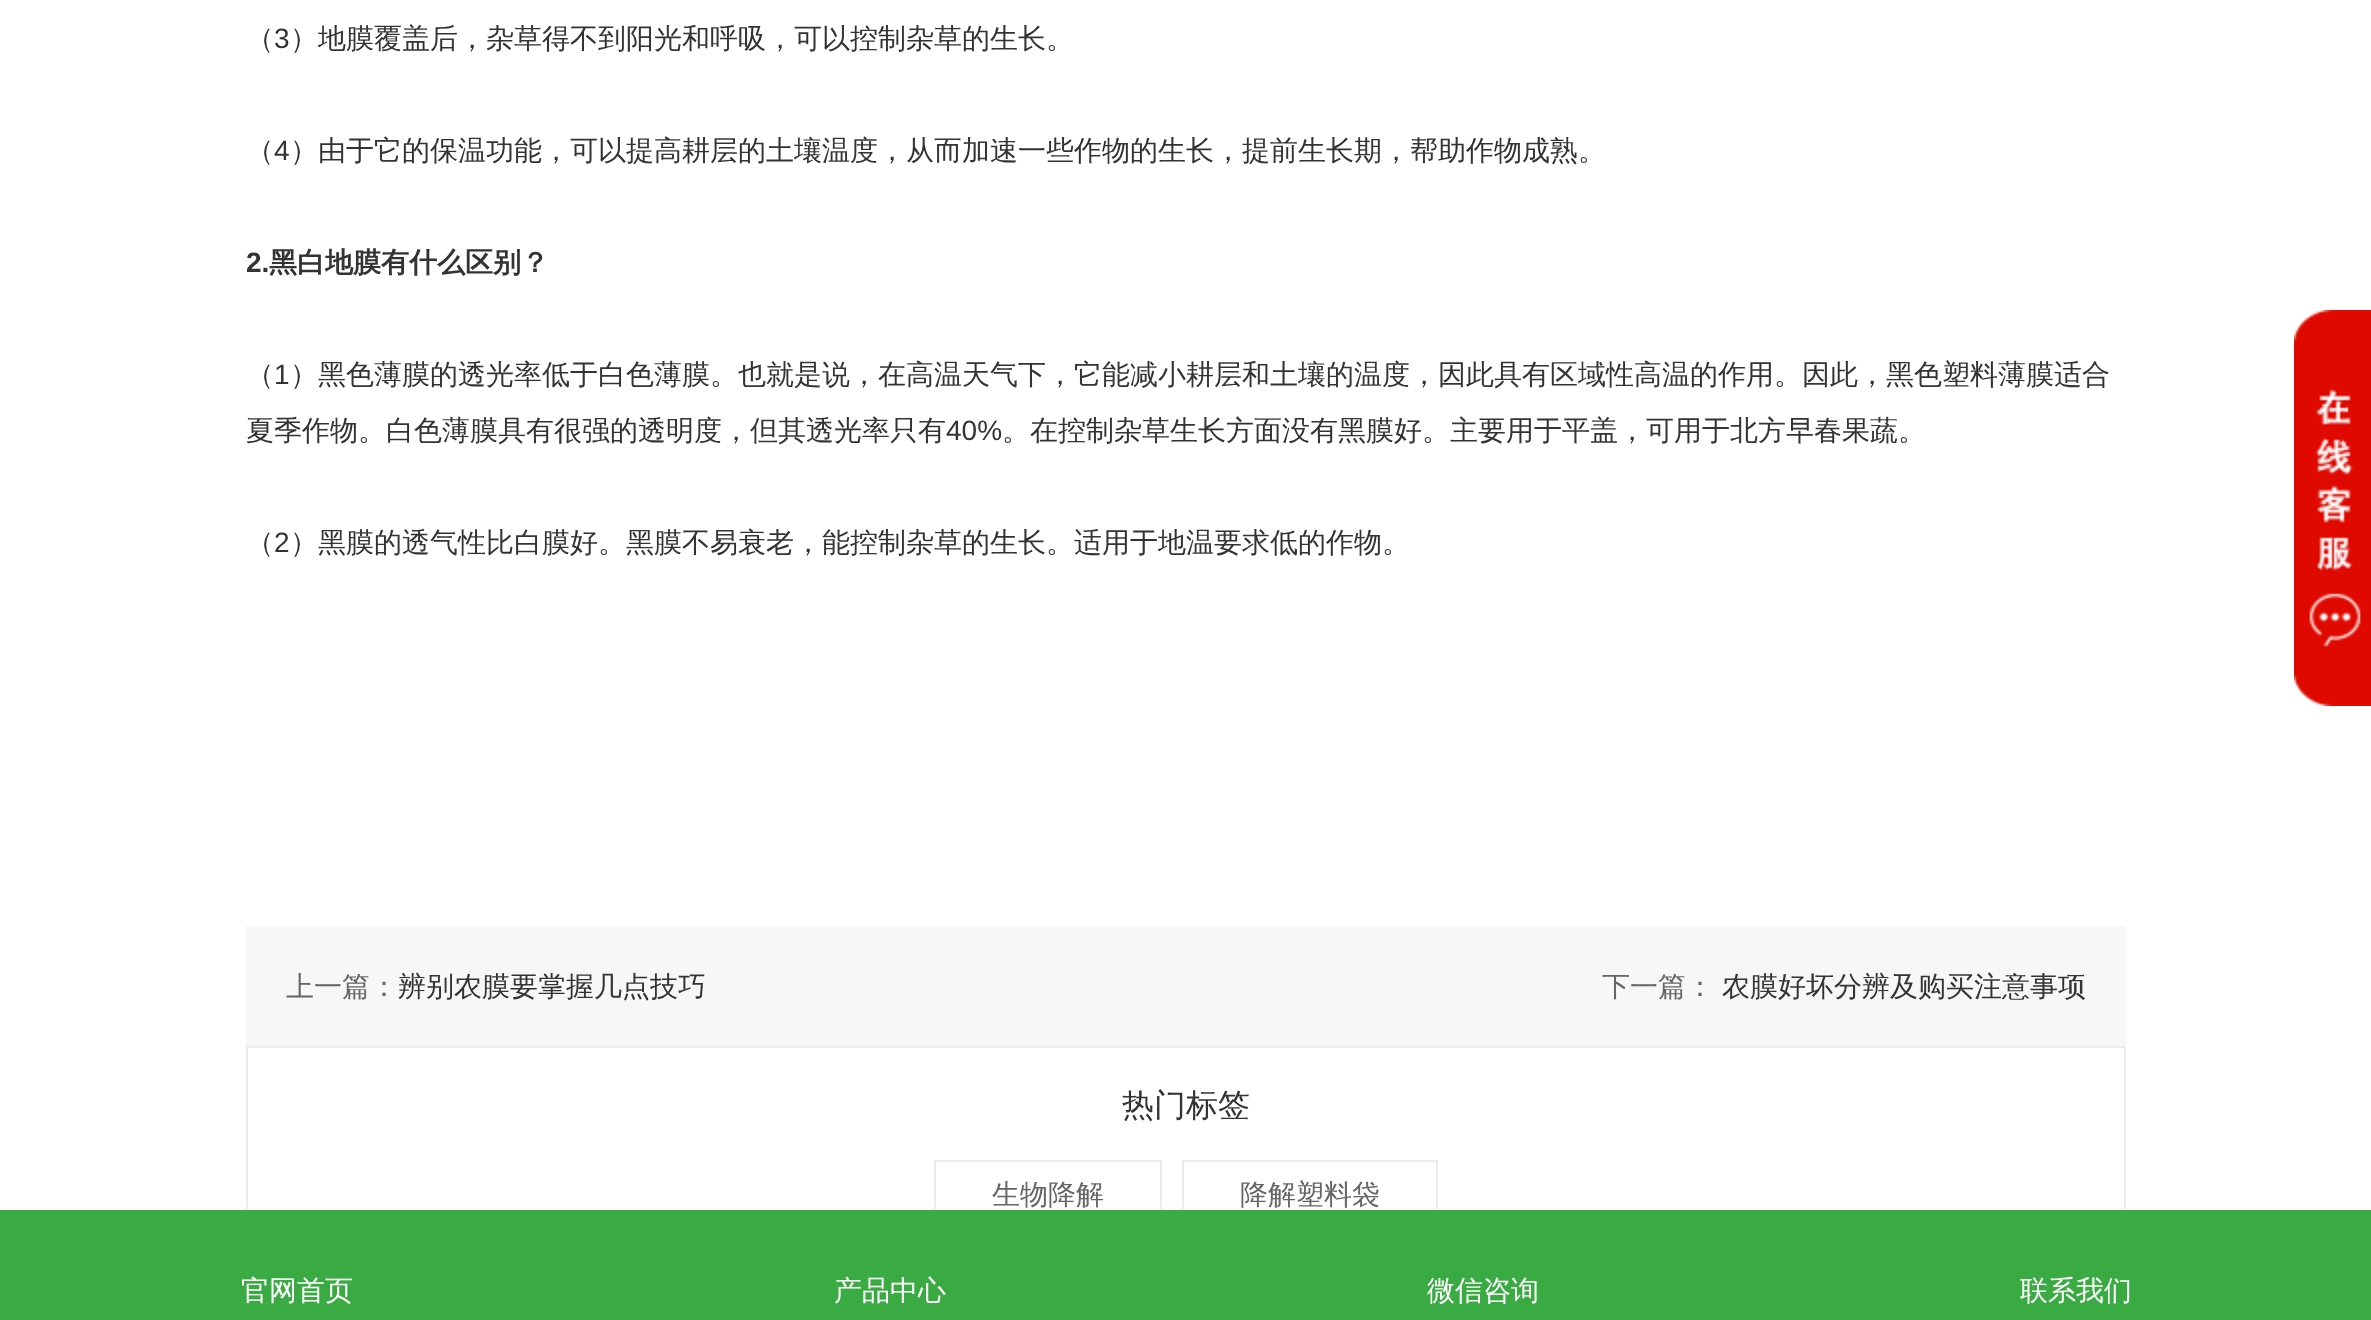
<!DOCTYPE html>
<meta charset="utf-8">
<style>body { margin: 0 } canvas { display: block }</style>
<canvas id="canvas" width="2371" height="1320"></canvas>
<script type="module">
  const canvas = document.getElementById("canvas");
  const ctx = canvas.getContext("2d");
  ctx.miterLimit = 4;
  ctx.fontKerning = "normal";
  async function loadImage(src) {
    const img = new Image();
    img.src = src;
    await img.decode();
    return img;
  }

  ctx.fillStyle = "#ffffff";
  ctx.fillRect(0, 0, 2371, 1320);
  ctx.font = "500 28px WenQuanYi Zen Hei";
  ctx.fillStyle = "#333333";
  ctx.fillText("（", 246, 48);
  ctx.font = "28px Liberation Sans";
  ctx.fillText("3", 274, 48);
  ctx.font = "500 28px WenQuanYi Zen Hei";
  ctx.fillText("）地膜覆盖后，杂草得不到阳光和呼吸，可以控制杂草的生长。", 290, 48);
  ctx.fillText("（", 246, 160);
  ctx.font = "28px Liberation Sans";
  ctx.fillText("4", 274, 160);
  ctx.font = "500 28px WenQuanYi Zen Hei";
  ctx.fillText("）由于它的保温功能，可以提高耕层的土壤温度，从而加速一些作物的生长，提前生长期，帮助作物成熟。", 290, 160);
  ctx.font = "bold 28px Liberation Sans";
  ctx.fillText("2.", 246, 272);
  ctx.font = "bold 28px WenQuanYi Zen Hei";
  ctx.fillText("黑白地膜有什么区别？", 269, 272);
  ctx.font = "500 28px WenQuanYi Zen Hei";
  ctx.fillText("（", 246, 384);
  ctx.font = "28px Liberation Sans";
  ctx.fillText("1", 274, 384);
  ctx.font = "500 28px WenQuanYi Zen Hei";
  ctx.fillText("）黑色薄膜的透光率低于白色薄膜。也就是说，在高温天气下，它能减小耕层和土壤的温度，因此具有区域性高温的作用。因此，黑色塑料薄膜适合", 290, 384);
  ctx.fillText("夏季作物。白色薄膜具有很强的透明度，但其透光率只有", 246, 440);
  ctx.font = "28px Liberation Sans";
  ctx.fillText("40%", 946, 440);
  ctx.font = "500 28px WenQuanYi Zen Hei";
  ctx.fillText("。在控制杂草生长方面没有黑膜好。主要用于平盖，可用于北方早春果蔬。", 1002, 440);
  ctx.fillText("（", 246, 552);
  ctx.font = "28px Liberation Sans";
  ctx.fillText("2", 274, 552);
  ctx.font = "500 28px WenQuanYi Zen Hei";
  ctx.fillText("）黑膜的透气性比白膜好。黑膜不易衰老，能控制杂草的生长。适用于地温要求低的作物。", 290, 552);
  ctx.fillStyle = "#f7f7f7";
  ctx.fillRect(246, 926, 1880, 120);
  ctx.fillStyle = "#666666";
  ctx.fillText("上一篇：", 286, 996);
  ctx.fillStyle = "#333333";
  ctx.fillText("辨别农膜要掌握几点技巧", 398, 996);
  ctx.fillStyle = "#666666";
  ctx.fillText("下一篇：", 1602, 996);
  ctx.fillStyle = "#333333";
  ctx.fillText("农膜好坏分辨及购买注意事项", 1722, 996);
  ctx.strokeStyle = "#ececec";
  ctx.lineWidth = 2;
  ctx.strokeRect(247, 1047, 1878, 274);
  ctx.font = "500 32px WenQuanYi Zen Hei";
  ctx.fillText("热门标签", 1122, 1116);
  ctx.strokeRect(935, 1161, 226, 62);
  ctx.font = "500 28px WenQuanYi Zen Hei";
  ctx.fillStyle = "#666666";
  ctx.fillText("生物降解", 992, 1204);
  ctx.strokeRect(1183, 1161, 254, 62);
  ctx.fillText("降解塑料袋", 1240, 1204);
  ctx.drawImage(await loadImage("img1.png"), 2294, 310, 77, 396);
  ctx.fillStyle = "#3aab43";
  ctx.fillRect(0, 1210, 2371, 110);
  ctx.fillStyle = "#ffffff";
  ctx.fillText("官网首页", 241, 1300);
  ctx.fillText("产品中心", 834, 1300);
  ctx.fillText("微信咨询", 1427, 1300);
  ctx.fillText("联系我们", 2020, 1300);
</script>
